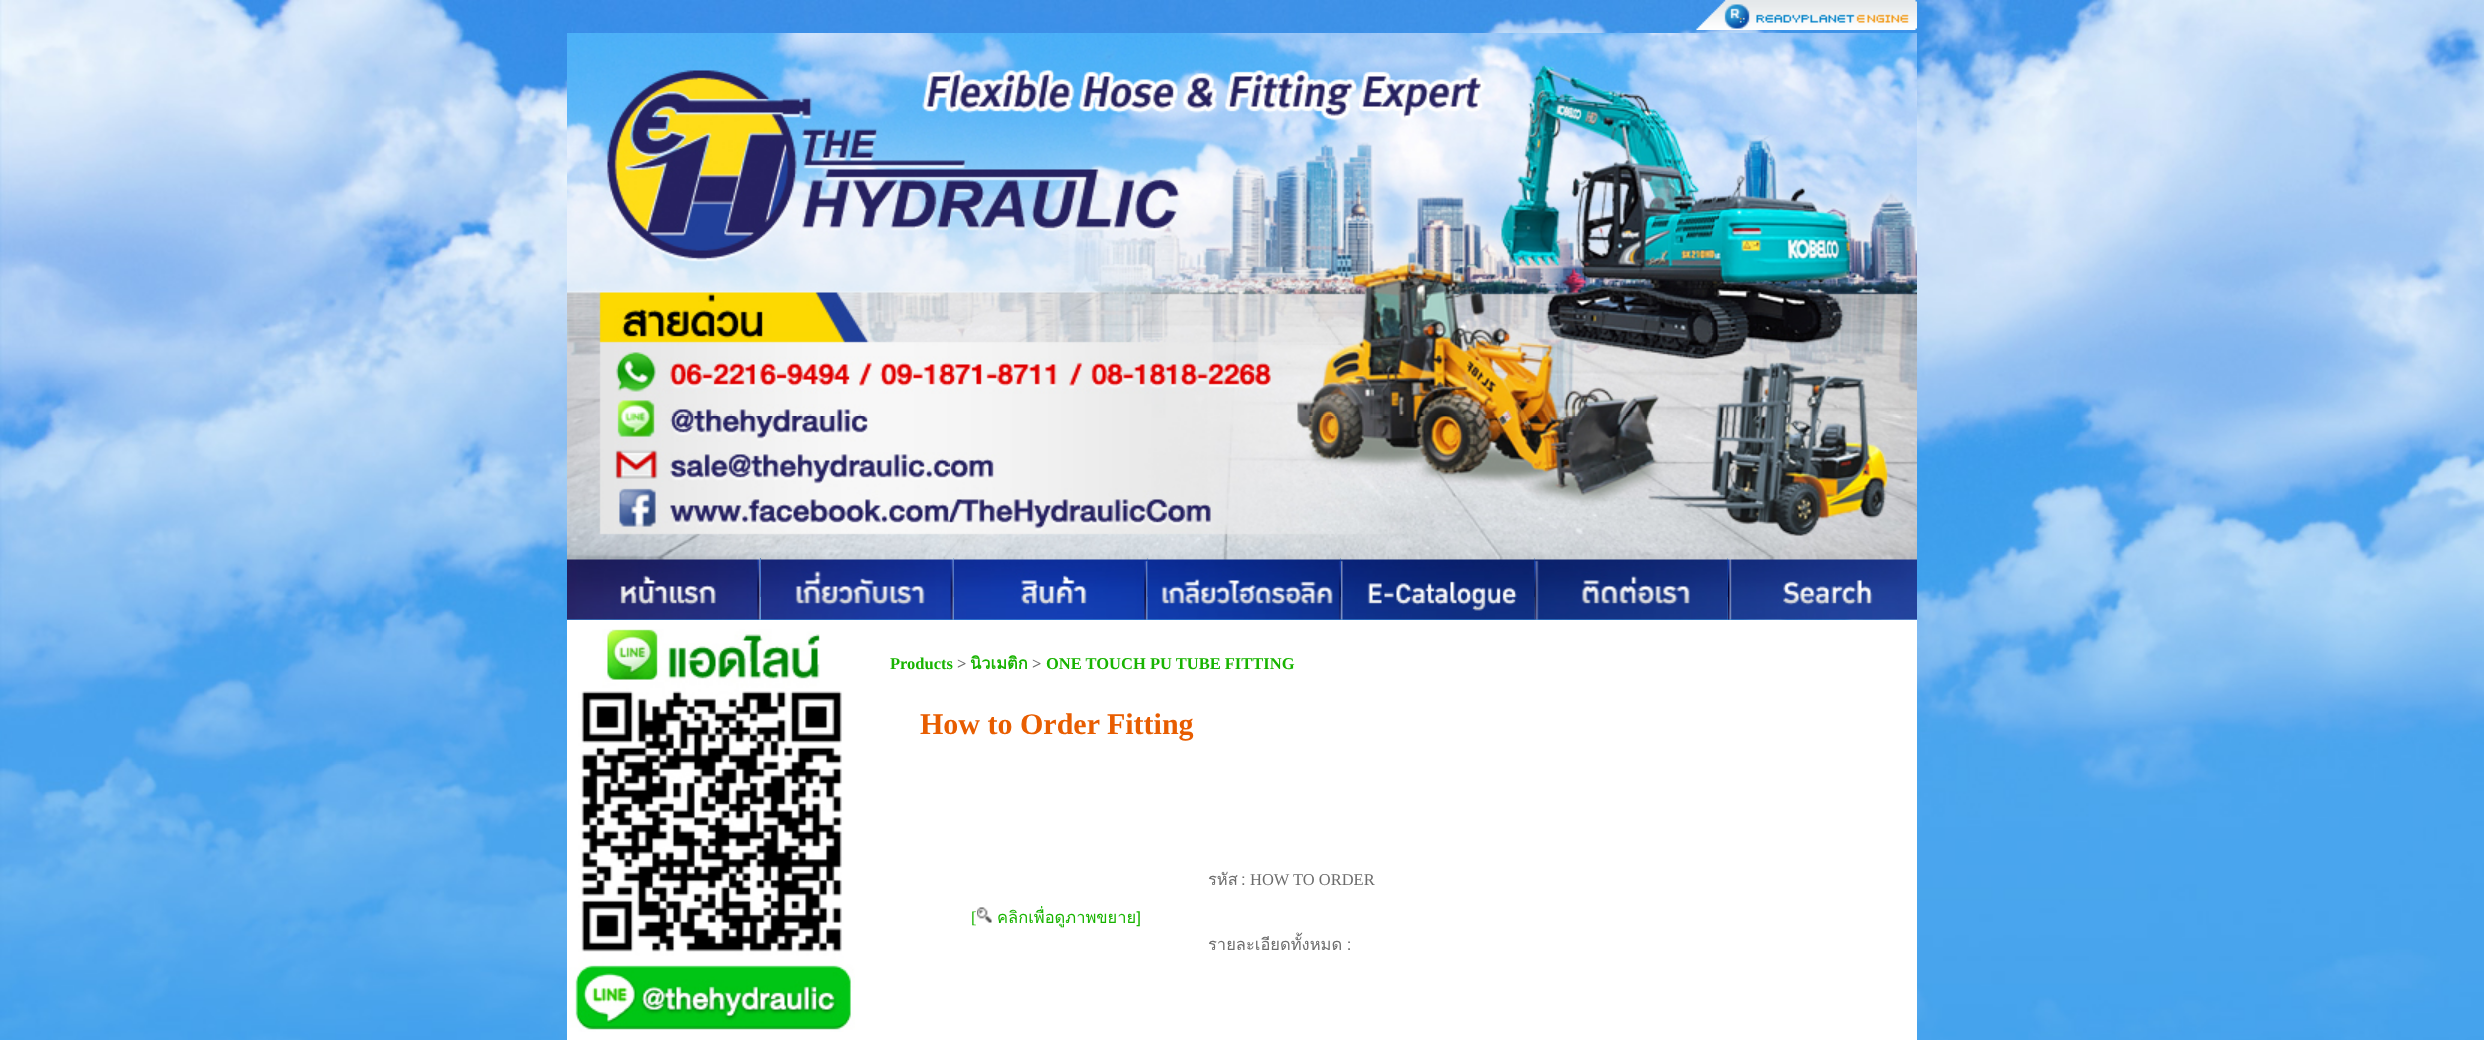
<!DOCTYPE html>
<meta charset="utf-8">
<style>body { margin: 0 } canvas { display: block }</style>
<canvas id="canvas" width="2484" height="1040"></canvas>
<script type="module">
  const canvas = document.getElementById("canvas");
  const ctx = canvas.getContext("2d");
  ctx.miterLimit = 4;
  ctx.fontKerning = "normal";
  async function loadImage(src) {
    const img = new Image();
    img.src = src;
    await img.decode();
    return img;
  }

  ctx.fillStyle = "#ffffff";
  ctx.fillRect(0, 0, 2484, 1040);
  ctx.drawImage(await loadImage("img1.png"), 0, 0, 2484, 1040);
  ctx.drawImage(await loadImage("img2.png"), 1696, 0, 221, 30);
  ctx.drawImage(await loadImage("img3.png"), 567, 33, 1350, 525);
  ctx.drawImage(await loadImage("img4.png"), 760, 558, 968, 39);
  ctx.drawImage(await loadImage("img5.png"), 567, 558, 194, 62);
  ctx.drawImage(await loadImage("img6.png"), 761, 558, 194, 62);
  ctx.drawImage(await loadImage("img7.png"), 954, 558, 194, 62);
  ctx.drawImage(await loadImage("img8.png"), 1147, 558, 195, 62);
  ctx.drawImage(await loadImage("img9.png"), 1341, 558, 194, 62);
  ctx.drawImage(await loadImage("img10.png"), 1534, 558, 195, 62);
  ctx.drawImage(await loadImage("img11.png"), 1728, 558, 189, 62);
  ctx.fillRect(567, 620, 1350, 420);
  ctx.drawImage(await loadImage("img12.png"), 569, 629, 286, 403);
  ctx.font = "bold 16.5px Liberation Serif";
  ctx.fillStyle = "#18b400";
  ctx.fillText("Products", 890, 669);
  ctx.fillStyle = "#6d6d6d";
  ctx.fillText(">", 957, 669);
  ctx.font = "bold 16.5px Loma";
  ctx.fillStyle = "#18b400";
  ctx.fillText("นิวเมติก", 970, 669);
  ctx.font = "bold 16.5px Liberation Serif";
  ctx.fillStyle = "#6d6d6d";
  ctx.fillText(">", 1032, 669);
  ctx.fillStyle = "#18b400";
  ctx.fillText("ONE TOUCH PU TUBE FITTING", 1046, 669);
  ctx.font = "bold 30px Liberation Serif";
  ctx.fillStyle = "#e85d00";
  ctx.fillText("How to Order Fitting", 920, 734);
  ctx.font = "16.5px Liberation Serif";
  ctx.fillStyle = "#18b400";
  ctx.fillText("[", 971, 923);
  ctx.drawImage(await loadImage("img13.png"), 977, 907, 15, 16);
  ctx.font = "16.5px Loma";
  ctx.fillText("คลิกเพื่อดูภาพขยาย]", 997, 923);
  ctx.fillStyle = "#6d6d6d";
  ctx.fillText("รหัส", 1208, 885);
  ctx.fillText(":", 1241, 885);
  ctx.font = "16.5px Liberation Serif";
  ctx.fillText("HOW TO ORDER", 1250, 885);
  ctx.wordSpacing = "-1px";
  ctx.font = "16.5px Loma";
  ctx.fillText("รายละเอียดทั้งหมด :", 1208, 950);
</script>
